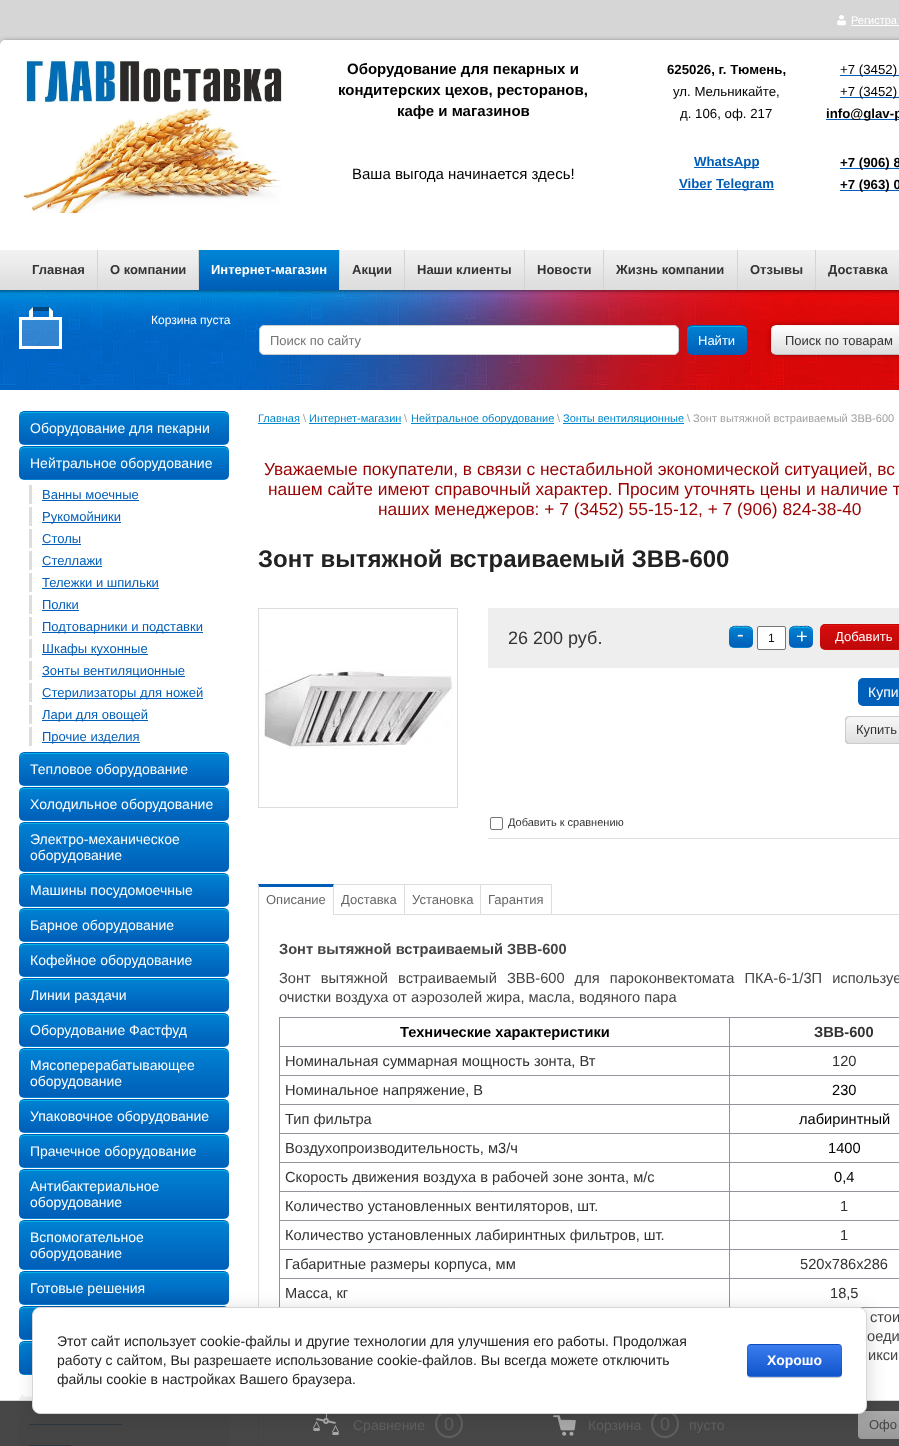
<!DOCTYPE html>
<meta charset="utf-8">
<style>body { margin: 0 } canvas { display: block }</style>
<canvas id="canvas" width="899" height="1446"></canvas>
<script type="module">
  const canvas = document.getElementById("canvas");
  const ctx = canvas.getContext("2d");
  ctx.miterLimit = 4;
  ctx.fontKerning = "normal";
  async function loadImage(src) {
    const img = new Image();
    img.src = src;
    await img.decode();
    return img;
  }
  let gradient;

  ctx.fillStyle = "#d6d6d6";
  ctx.fillRect(0, 0, 899, 1446);
  ctx.fillStyle = "#000000";
  ctx.filter = "blur(3px)";
  ctx.beginPath();
  ctx.roundRect(3, 43, 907, 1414, 2);
  ctx.fill();
  ctx.filter = "none";
  ctx.fillStyle = "#ffffff";
  ctx.beginPath();
  ctx.roundRect(0, 40, 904, 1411, 5);
  ctx.fill();
  ctx.drawImage(await loadImage("img1.png"), 837, 15, 9, 11);
  ctx.fillRect(851, 25, 48, 1);
  ctx.font = "11px Liberation Sans";
  ctx.fillText("Регистра", 851, 24);
  ctx.drawImage(await loadImage("img2.png"), 23, 58, 259, 155);
  ctx.font = "bold 15px Liberation Sans";
  ctx.fillStyle = "#000000";
  ctx.fillText("Оборудование для пекарных и", 347, 74);
  ctx.fillText("кондитерских цехов, ресторанов,", 338, 95);
  ctx.fillText("кафе и магазинов", 397, 116);
  ctx.font = "15px Liberation Sans";
  ctx.fillText("Ваша выгода начинается здесь!", 352, 179);
  ctx.font = "bold 13.25px Liberation Sans";
  ctx.fillText("625026, г. Тюмень,", 667, 74);
  ctx.font = "13.25px Liberation Sans";
  ctx.fillText("ул. Мельникайте,", 673, 96);
  ctx.fillText("д. 106, оф. 217", 680, 118);
  ctx.fillStyle = "#005eb8";
  ctx.fillRect(694, 167, 65, 1);
  ctx.font = "bold 13.25px Liberation Sans";
  ctx.fillText("WhatsApp", 694, 166);
  ctx.fillText("Viber", 679, 188);
  ctx.fillRect(679, 189, 33, 1);
  ctx.fillRect(716, 189, 58, 1);
  ctx.fillText("Telegram", 716, 188);
  ctx.fillRect(840, 75, 59, 1);
  ctx.font = "13.25px Liberation Sans";
  ctx.fillStyle = "#000000";
  ctx.fillText("+7 (3452)", 840, 74);
  ctx.fillStyle = "#005eb8";
  ctx.fillRect(840, 97, 59, 1);
  ctx.fillStyle = "#000000";
  ctx.fillText("+7 (3452)", 840, 96);
  ctx.fillStyle = "#005eb8";
  ctx.fillRect(826, 119, 73, 1);
  ctx.font = "bold 13.25px Liberation Sans";
  ctx.fillStyle = "#000000";
  ctx.fillText("info@glav-p", 826, 118);
  ctx.fillStyle = "#005eb8";
  ctx.fillRect(840, 168, 59, 1);
  ctx.fillStyle = "#000000";
  ctx.fillText("+7 (906) 8", 840, 167);
  ctx.fillStyle = "#005eb8";
  ctx.fillRect(840, 190, 59, 1);
  ctx.fillStyle = "#000000";
  ctx.fillText("+7 (963) 0", 840, 189);
  ctx.drawImage(await loadImage("img3.png"), 0, 250, 899, 40);
  ctx.fillStyle = "#d4d4d4";
  ctx.fillRect(97, 250, 1, 40);
  ctx.font = "bold 13px Liberation Sans";
  ctx.fillStyle = "#333333";
  ctx.fillText("Главная", 32, 274);
  ctx.fillStyle = "#d4d4d4";
  ctx.fillRect(198, 250, 1, 40);
  ctx.fillStyle = "#333333";
  ctx.fillText("О компании", 110, 274);
  ctx.fillStyle = "#d4d4d4";
  ctx.fillRect(339, 250, 1, 40);
  ctx.drawImage(await loadImage("img4.png"), 199, 250, 140, 40);
  ctx.fillStyle = "#ffffff";
  ctx.fillText("Интернет-магазин", 211, 274);
  ctx.fillStyle = "#d4d4d4";
  ctx.fillRect(404, 250, 1, 40);
  ctx.fillStyle = "#333333";
  ctx.fillText("Акции", 352, 274);
  ctx.fillStyle = "#d4d4d4";
  ctx.fillRect(524, 250, 1, 40);
  ctx.fillStyle = "#333333";
  ctx.fillText("Наши клиенты", 417, 274);
  ctx.fillStyle = "#d4d4d4";
  ctx.fillRect(603, 250, 1, 40);
  ctx.fillStyle = "#333333";
  ctx.fillText("Новости", 537, 274);
  ctx.fillStyle = "#d4d4d4";
  ctx.fillRect(737, 250, 1, 40);
  ctx.fillStyle = "#333333";
  ctx.fillText("Жизнь компании", 616, 274);
  ctx.fillStyle = "#d4d4d4";
  ctx.fillRect(815, 250, 1, 40);
  ctx.fillStyle = "#333333";
  ctx.fillText("Отзывы", 750, 274);
  ctx.fillText("Доставка", 828, 274);
  ctx.drawImage(await loadImage("img5.png"), 0, 290, 899, 100);
  ctx.drawImage(await loadImage("img6.png"), 19, 307, 43, 42);
  ctx.font = "12px Liberation Sans";
  ctx.fillStyle = "#ffffff";
  ctx.fillText("Корзина пуста", 151, 324);
  ctx.beginPath();
  ctx.roundRect(259.5, 325.5, 419, 29, 4.5);
  ctx.fill();
  ctx.strokeStyle = "#cccccc";
  ctx.stroke();
  ctx.font = "13px Liberation Sans";
  ctx.fillStyle = "#757575";
  ctx.fillText("Поиск по сайту", 270, 345);
  ctx.save();
  ctx.beginPath();
  ctx.roundRect(687, 325, 60, 30, 5);
  ctx.clip();
  gradient = ctx.createLinearGradient(717, 326, 717, 355);
  gradient.addColorStop(0, "#0082d3");
  gradient.addColorStop(1, "#005eb8");
  ctx.fillStyle = gradient;
  ctx.beginPath();
  ctx.roundRect(687, 326, 60, 29, [0, 0, 5, 5]);
  ctx.fill();
  ctx.restore();
  ctx.fillStyle = "#00b5e5";
  ctx.beginPath();
  ctx.moveTo(692, 327);
  ctx.lineTo(742, 327);
  ctx.bezierCurveTo(744, 327, 746, 329, 746, 331);
  ctx.bezierCurveTo(746, 324, 739, 326, 734, 326);
  ctx.lineTo(700, 326);
  ctx.bezierCurveTo(695, 326, 688, 324, 688, 331);
  ctx.bezierCurveTo(688, 329, 690, 327, 692, 327);
  ctx.closePath();
  ctx.fill();
  ctx.fillStyle = "#005eb8";
  ctx.beginPath();
  ctx.moveTo(692, 325);
  ctx.bezierCurveTo(690, 325, 689, 326, 688, 326);
  ctx.lineTo(689, 327);
  ctx.lineTo(692, 326);
  ctx.lineTo(742, 326);
  ctx.lineTo(745, 327);
  ctx.lineTo(746, 326);
  ctx.bezierCurveTo(745, 326, 744, 325, 742, 325);
  ctx.closePath();
  ctx.fill();
  ctx.fillStyle = "#ffffff";
  ctx.fillText("Найти", 698, 345);
  ctx.fillStyle = "#000000";
  ctx.filter = "blur(3px)";
  ctx.beginPath();
  ctx.roundRect(774, 328, 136, 24, 2);
  ctx.fill();
  ctx.filter = "none";
  ctx.save();
  ctx.beginPath();
  ctx.roundRect(771, 325, 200, 30, 5);
  ctx.clip();
  gradient = ctx.createLinearGradient(871, 326, 871, 354);
  gradient.addColorStop(0, "#ffffff");
  gradient.addColorStop(1, "#dedede");
  ctx.fillStyle = gradient;
  ctx.fillRect(771, 326, 128, 28);
  ctx.restore();
  ctx.beginPath();
  ctx.moveTo(773, 327);
  ctx.bezierCurveTo(773.5, 326, 775, 325.5, 776, 325.5);
  ctx.lineTo(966, 325.5);
  ctx.bezierCurveTo(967, 325.5, 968.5, 326, 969, 327);
  ctx.strokeStyle = "#f4f4f4";
  ctx.stroke();
  ctx.beginPath();
  ctx.moveTo(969, 353);
  ctx.bezierCurveTo(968.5, 354, 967, 354.5, 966, 354.5);
  ctx.lineTo(776, 354.5);
  ctx.bezierCurveTo(775, 354.5, 773.5, 354, 773, 353);
  ctx.strokeStyle = "#bbbbbb";
  ctx.stroke();
  ctx.beginPath();
  ctx.moveTo(773, 353);
  ctx.bezierCurveTo(772, 352.5, 771.5, 351, 771.5, 350);
  ctx.lineTo(771.5, 330);
  ctx.bezierCurveTo(771.5, 329, 772, 327.5, 773, 327);
  ctx.strokeStyle = "#dddddd";
  ctx.stroke();
  ctx.fillStyle = "#333333";
  ctx.fillText("Поиск по товарам", 785, 345);
  ctx.save();
  ctx.beginPath();
  ctx.roundRect(19, 411, 210, 34, 5);
  ctx.clip();
  gradient = ctx.createLinearGradient(124, 412, 124, 444);
  gradient.addColorStop(0, "#0082d3");
  gradient.addColorStop(1, "#005eb8");
  ctx.fillStyle = gradient;
  ctx.fillRect(19, 412, 210, 32);
  gradient = ctx.createLinearGradient(124, 444, 124, 476);
  gradient.addColorStop(0, "#0082d3");
  gradient.addColorStop(1, "#005eb8");
  ctx.fillStyle = gradient;
  ctx.fillRect(19, 444, 210, 1);
  ctx.restore();
  ctx.fillStyle = "#00b5e5";
  ctx.beginPath();
  ctx.moveTo(24, 413);
  ctx.lineTo(224, 413);
  ctx.bezierCurveTo(226, 413, 228, 415, 228, 417);
  ctx.lineTo(228, 416);
  ctx.bezierCurveTo(228, 414, 226, 412, 224, 412);
  ctx.lineTo(24, 412);
  ctx.bezierCurveTo(22, 412, 20, 414, 20, 416);
  ctx.lineTo(20, 417);
  ctx.bezierCurveTo(20, 415, 22, 413, 24, 413);
  ctx.closePath();
  ctx.fill();
  ctx.beginPath();
  ctx.moveTo(21, 413);
  ctx.bezierCurveTo(21.5, 412, 23, 411.5, 24, 411.5);
  ctx.lineTo(224, 411.5);
  ctx.bezierCurveTo(225, 411.5, 226.5, 412, 227, 413);
  ctx.strokeStyle = "#005eb8";
  ctx.stroke();
  ctx.font = "14px Liberation Sans";
  ctx.fillStyle = "#ffffff";
  ctx.fillText("Оборудование для пекарни", 30, 433);
  ctx.save();
  ctx.beginPath();
  ctx.roundRect(19, 446, 210, 34, 5);
  ctx.clip();
  gradient = ctx.createLinearGradient(124, 447, 124, 479);
  gradient.addColorStop(0, "#0082d3");
  gradient.addColorStop(1, "#005eb8");
  ctx.fillStyle = gradient;
  ctx.fillRect(19, 447, 210, 32);
  gradient = ctx.createLinearGradient(124, 479, 124, 511);
  gradient.addColorStop(0, "#0082d3");
  gradient.addColorStop(1, "#005eb8");
  ctx.fillStyle = gradient;
  ctx.fillRect(19, 479, 210, 1);
  ctx.restore();
  ctx.fillStyle = "#00b5e5";
  ctx.beginPath();
  ctx.moveTo(24, 448);
  ctx.lineTo(224, 448);
  ctx.bezierCurveTo(226, 448, 228, 450, 228, 452);
  ctx.lineTo(228, 451);
  ctx.bezierCurveTo(228, 449, 226, 447, 224, 447);
  ctx.lineTo(24, 447);
  ctx.bezierCurveTo(22, 447, 20, 449, 20, 451);
  ctx.lineTo(20, 452);
  ctx.bezierCurveTo(20, 450, 22, 448, 24, 448);
  ctx.closePath();
  ctx.fill();
  ctx.beginPath();
  ctx.moveTo(21, 448);
  ctx.bezierCurveTo(21.5, 447, 23, 446.5, 24, 446.5);
  ctx.lineTo(224, 446.5);
  ctx.bezierCurveTo(225, 446.5, 226.5, 447, 227, 448);
  ctx.stroke();
  ctx.fillStyle = "#ffffff";
  ctx.fillText("Нейтральное оборудование", 30, 468);
  ctx.fillStyle = "#dddddd";
  ctx.fillRect(29, 485, 3, 19);
  ctx.font = "13px Liberation Sans";
  ctx.fillStyle = "#005eb8";
  ctx.fillText("Ванны моечные", 42, 499);
  ctx.fillRect(42, 500, 97, 1);
  ctx.fillStyle = "#dddddd";
  ctx.fillRect(29, 507, 3, 19);
  ctx.fillStyle = "#005eb8";
  ctx.fillRect(42, 522, 79, 1);
  ctx.fillText("Рукомойники", 42, 521);
  ctx.fillStyle = "#dddddd";
  ctx.fillRect(29, 529, 3, 19);
  ctx.fillStyle = "#005eb8";
  ctx.fillText("Столы", 42, 543);
  ctx.fillRect(42, 544, 39, 1);
  ctx.fillStyle = "#dddddd";
  ctx.fillRect(29, 551, 3, 19);
  ctx.fillStyle = "#005eb8";
  ctx.fillText("Стеллажи", 42, 565);
  ctx.fillRect(42, 566, 60, 1);
  ctx.fillStyle = "#dddddd";
  ctx.fillRect(29, 573, 3, 19);
  ctx.fillStyle = "#005eb8";
  ctx.fillText("Тележки и шпильки", 42, 587);
  ctx.fillRect(42, 588, 117, 1);
  ctx.fillStyle = "#dddddd";
  ctx.fillRect(29, 595, 3, 19);
  ctx.fillStyle = "#005eb8";
  ctx.fillText("Полки", 42, 609);
  ctx.fillRect(42, 610, 37, 1);
  ctx.fillStyle = "#dddddd";
  ctx.fillRect(29, 617, 3, 19);
  ctx.fillStyle = "#005eb8";
  ctx.fillRect(42, 632, 161, 1);
  ctx.fillText("Подтоварники и подставки", 42, 631);
  ctx.fillStyle = "#dddddd";
  ctx.fillRect(29, 639, 3, 19);
  ctx.fillStyle = "#005eb8";
  ctx.fillRect(42, 654, 106, 1);
  ctx.fillText("Шкафы кухонные", 42, 653);
  ctx.fillStyle = "#dddddd";
  ctx.fillRect(29, 661, 3, 19);
  ctx.fillStyle = "#005eb8";
  ctx.fillRect(42, 676, 143, 1);
  ctx.fillText("Зонты вентиляционные", 42, 675);
  ctx.fillStyle = "#dddddd";
  ctx.fillRect(29, 683, 3, 19);
  ctx.fillStyle = "#005eb8";
  ctx.fillRect(42, 698, 161, 1);
  ctx.fillText("Стерилизаторы для ножей", 42, 697);
  ctx.fillStyle = "#dddddd";
  ctx.fillRect(29, 705, 3, 19);
  ctx.fillStyle = "#005eb8";
  ctx.fillRect(42, 720, 106, 1);
  ctx.fillText("Лари для овощей", 42, 719);
  ctx.fillStyle = "#dddddd";
  ctx.fillRect(29, 727, 3, 19);
  ctx.fillStyle = "#005eb8";
  ctx.fillRect(42, 742, 98, 1);
  ctx.fillText("Прочие изделия", 42, 741);
  ctx.save();
  ctx.beginPath();
  ctx.roundRect(19, 752, 210, 34, 5);
  ctx.clip();
  gradient = ctx.createLinearGradient(124, 753, 124, 785);
  gradient.addColorStop(0, "#0082d3");
  gradient.addColorStop(1, "#005eb8");
  ctx.fillStyle = gradient;
  ctx.fillRect(19, 753, 210, 32);
  gradient = ctx.createLinearGradient(124, 785, 124, 817);
  gradient.addColorStop(0, "#0082d3");
  gradient.addColorStop(1, "#005eb8");
  ctx.fillStyle = gradient;
  ctx.fillRect(19, 785, 210, 1);
  ctx.restore();
  ctx.fillStyle = "#00b5e5";
  ctx.beginPath();
  ctx.moveTo(24, 754);
  ctx.lineTo(224, 754);
  ctx.bezierCurveTo(226, 754, 228, 756, 228, 758);
  ctx.lineTo(228, 757);
  ctx.bezierCurveTo(228, 755, 226, 753, 224, 753);
  ctx.lineTo(24, 753);
  ctx.bezierCurveTo(22, 753, 20, 755, 20, 757);
  ctx.lineTo(20, 758);
  ctx.bezierCurveTo(20, 756, 22, 754, 24, 754);
  ctx.closePath();
  ctx.fill();
  ctx.beginPath();
  ctx.moveTo(21, 754);
  ctx.bezierCurveTo(21.5, 753, 23, 752.5, 24, 752.5);
  ctx.lineTo(224, 752.5);
  ctx.bezierCurveTo(225, 752.5, 226.5, 753, 227, 754);
  ctx.stroke();
  ctx.font = "14px Liberation Sans";
  ctx.fillStyle = "#ffffff";
  ctx.fillText("Тепловое оборудование", 30, 774);
  ctx.save();
  ctx.beginPath();
  ctx.roundRect(19, 787, 210, 34, 5);
  ctx.clip();
  gradient = ctx.createLinearGradient(124, 788, 124, 820);
  gradient.addColorStop(0, "#0082d3");
  gradient.addColorStop(1, "#005eb8");
  ctx.fillStyle = gradient;
  ctx.fillRect(19, 788, 210, 32);
  gradient = ctx.createLinearGradient(124, 820, 124, 852);
  gradient.addColorStop(0, "#0082d3");
  gradient.addColorStop(1, "#005eb8");
  ctx.fillStyle = gradient;
  ctx.fillRect(19, 820, 210, 1);
  ctx.restore();
  ctx.fillStyle = "#00b5e5";
  ctx.beginPath();
  ctx.moveTo(24, 789);
  ctx.lineTo(224, 789);
  ctx.bezierCurveTo(226, 789, 228, 791, 228, 793);
  ctx.lineTo(228, 792);
  ctx.bezierCurveTo(228, 790, 226, 788, 224, 788);
  ctx.lineTo(24, 788);
  ctx.bezierCurveTo(22, 788, 20, 790, 20, 792);
  ctx.lineTo(20, 793);
  ctx.bezierCurveTo(20, 791, 22, 789, 24, 789);
  ctx.closePath();
  ctx.fill();
  ctx.beginPath();
  ctx.moveTo(21, 789);
  ctx.bezierCurveTo(21.5, 788, 23, 787.5, 24, 787.5);
  ctx.lineTo(224, 787.5);
  ctx.bezierCurveTo(225, 787.5, 226.5, 788, 227, 789);
  ctx.stroke();
  ctx.fillStyle = "#ffffff";
  ctx.fillText("Холодильное оборудование", 30, 809);
  ctx.save();
  ctx.beginPath();
  ctx.roundRect(19, 822, 210, 50, 5);
  ctx.clip();
  gradient = ctx.createLinearGradient(124, 823, 124, 871);
  gradient.addColorStop(0, "#0082d3");
  gradient.addColorStop(1, "#005eb8");
  ctx.fillStyle = gradient;
  ctx.fillRect(19, 823, 210, 48);
  gradient = ctx.createLinearGradient(124, 871, 124, 919);
  gradient.addColorStop(0, "#0082d3");
  gradient.addColorStop(1, "#005eb8");
  ctx.fillStyle = gradient;
  ctx.fillRect(19, 871, 210, 1);
  ctx.restore();
  ctx.fillStyle = "#00b5e5";
  ctx.beginPath();
  ctx.moveTo(24, 824);
  ctx.lineTo(224, 824);
  ctx.bezierCurveTo(226, 824, 228, 826, 228, 828);
  ctx.lineTo(228, 827);
  ctx.bezierCurveTo(228, 825, 226, 823, 224, 823);
  ctx.lineTo(24, 823);
  ctx.bezierCurveTo(22, 823, 20, 825, 20, 827);
  ctx.lineTo(20, 828);
  ctx.bezierCurveTo(20, 826, 22, 824, 24, 824);
  ctx.closePath();
  ctx.fill();
  ctx.beginPath();
  ctx.moveTo(21, 824);
  ctx.bezierCurveTo(21.5, 823, 23, 822.5, 24, 822.5);
  ctx.lineTo(224, 822.5);
  ctx.bezierCurveTo(225, 822.5, 226.5, 823, 227, 824);
  ctx.stroke();
  ctx.fillStyle = "#ffffff";
  ctx.fillText("Электро-механическое", 30, 844);
  ctx.fillText("оборудование", 30, 860);
  ctx.save();
  ctx.beginPath();
  ctx.roundRect(19, 873, 210, 34, 5);
  ctx.clip();
  gradient = ctx.createLinearGradient(124, 874, 124, 906);
  gradient.addColorStop(0, "#0082d3");
  gradient.addColorStop(1, "#005eb8");
  ctx.fillStyle = gradient;
  ctx.fillRect(19, 874, 210, 32);
  gradient = ctx.createLinearGradient(124, 906, 124, 938);
  gradient.addColorStop(0, "#0082d3");
  gradient.addColorStop(1, "#005eb8");
  ctx.fillStyle = gradient;
  ctx.fillRect(19, 906, 210, 1);
  ctx.restore();
  ctx.fillStyle = "#00b5e5";
  ctx.beginPath();
  ctx.moveTo(24, 875);
  ctx.lineTo(224, 875);
  ctx.bezierCurveTo(226, 875, 228, 877, 228, 879);
  ctx.lineTo(228, 878);
  ctx.bezierCurveTo(228, 876, 226, 874, 224, 874);
  ctx.lineTo(24, 874);
  ctx.bezierCurveTo(22, 874, 20, 876, 20, 878);
  ctx.lineTo(20, 879);
  ctx.bezierCurveTo(20, 877, 22, 875, 24, 875);
  ctx.closePath();
  ctx.fill();
  ctx.beginPath();
  ctx.moveTo(21, 875);
  ctx.bezierCurveTo(21.5, 874, 23, 873.5, 24, 873.5);
  ctx.lineTo(224, 873.5);
  ctx.bezierCurveTo(225, 873.5, 226.5, 874, 227, 875);
  ctx.stroke();
  ctx.fillStyle = "#ffffff";
  ctx.fillText("Машины посудомоечные", 30, 895);
  ctx.save();
  ctx.beginPath();
  ctx.roundRect(19, 908, 210, 34, 5);
  ctx.clip();
  gradient = ctx.createLinearGradient(124, 909, 124, 941);
  gradient.addColorStop(0, "#0082d3");
  gradient.addColorStop(1, "#005eb8");
  ctx.fillStyle = gradient;
  ctx.fillRect(19, 909, 210, 32);
  gradient = ctx.createLinearGradient(124, 941, 124, 973);
  gradient.addColorStop(0, "#0082d3");
  gradient.addColorStop(1, "#005eb8");
  ctx.fillStyle = gradient;
  ctx.fillRect(19, 941, 210, 1);
  ctx.restore();
  ctx.fillStyle = "#00b5e5";
  ctx.beginPath();
  ctx.moveTo(24, 910);
  ctx.lineTo(224, 910);
  ctx.bezierCurveTo(226, 910, 228, 912, 228, 914);
  ctx.lineTo(228, 913);
  ctx.bezierCurveTo(228, 911, 226, 909, 224, 909);
  ctx.lineTo(24, 909);
  ctx.bezierCurveTo(22, 909, 20, 911, 20, 913);
  ctx.lineTo(20, 914);
  ctx.bezierCurveTo(20, 912, 22, 910, 24, 910);
  ctx.closePath();
  ctx.fill();
  ctx.beginPath();
  ctx.moveTo(21, 910);
  ctx.bezierCurveTo(21.5, 909, 23, 908.5, 24, 908.5);
  ctx.lineTo(224, 908.5);
  ctx.bezierCurveTo(225, 908.5, 226.5, 909, 227, 910);
  ctx.stroke();
  ctx.fillStyle = "#ffffff";
  ctx.fillText("Барное оборудование", 30, 930);
  ctx.save();
  ctx.beginPath();
  ctx.roundRect(19, 943, 210, 34, 5);
  ctx.clip();
  gradient = ctx.createLinearGradient(124, 944, 124, 976);
  gradient.addColorStop(0, "#0082d3");
  gradient.addColorStop(1, "#005eb8");
  ctx.fillStyle = gradient;
  ctx.fillRect(19, 944, 210, 32);
  gradient = ctx.createLinearGradient(124, 976, 124, 1008);
  gradient.addColorStop(0, "#0082d3");
  gradient.addColorStop(1, "#005eb8");
  ctx.fillStyle = gradient;
  ctx.fillRect(19, 976, 210, 1);
  ctx.restore();
  ctx.fillStyle = "#00b5e5";
  ctx.beginPath();
  ctx.moveTo(24, 945);
  ctx.lineTo(224, 945);
  ctx.bezierCurveTo(226, 945, 228, 947, 228, 949);
  ctx.lineTo(228, 948);
  ctx.bezierCurveTo(228, 946, 226, 944, 224, 944);
  ctx.lineTo(24, 944);
  ctx.bezierCurveTo(22, 944, 20, 946, 20, 948);
  ctx.lineTo(20, 949);
  ctx.bezierCurveTo(20, 947, 22, 945, 24, 945);
  ctx.closePath();
  ctx.fill();
  ctx.beginPath();
  ctx.moveTo(21, 945);
  ctx.bezierCurveTo(21.5, 944, 23, 943.5, 24, 943.5);
  ctx.lineTo(224, 943.5);
  ctx.bezierCurveTo(225, 943.5, 226.5, 944, 227, 945);
  ctx.stroke();
  ctx.fillStyle = "#ffffff";
  ctx.fillText("Кофейное оборудование", 30, 965);
  ctx.save();
  ctx.beginPath();
  ctx.roundRect(19, 978, 210, 34, 5);
  ctx.clip();
  gradient = ctx.createLinearGradient(124, 979, 124, 1011);
  gradient.addColorStop(0, "#0082d3");
  gradient.addColorStop(1, "#005eb8");
  ctx.fillStyle = gradient;
  ctx.fillRect(19, 979, 210, 32);
  gradient = ctx.createLinearGradient(124, 1011, 124, 1043);
  gradient.addColorStop(0, "#0082d3");
  gradient.addColorStop(1, "#005eb8");
  ctx.fillStyle = gradient;
  ctx.fillRect(19, 1011, 210, 1);
  ctx.restore();
  ctx.fillStyle = "#00b5e5";
  ctx.beginPath();
  ctx.moveTo(24, 980);
  ctx.lineTo(224, 980);
  ctx.bezierCurveTo(226, 980, 228, 982, 228, 984);
  ctx.lineTo(228, 983);
  ctx.bezierCurveTo(228, 981, 226, 979, 224, 979);
  ctx.lineTo(24, 979);
  ctx.bezierCurveTo(22, 979, 20, 981, 20, 983);
  ctx.lineTo(20, 984);
  ctx.bezierCurveTo(20, 982, 22, 980, 24, 980);
  ctx.closePath();
  ctx.fill();
  ctx.beginPath();
  ctx.moveTo(21, 980);
  ctx.bezierCurveTo(21.5, 979, 23, 978.5, 24, 978.5);
  ctx.lineTo(224, 978.5);
  ctx.bezierCurveTo(225, 978.5, 226.5, 979, 227, 980);
  ctx.stroke();
  ctx.fillStyle = "#ffffff";
  ctx.fillText("Линии раздачи", 30, 1000);
  ctx.save();
  ctx.beginPath();
  ctx.roundRect(19, 1013, 210, 34, 5);
  ctx.clip();
  gradient = ctx.createLinearGradient(124, 1014, 124, 1046);
  gradient.addColorStop(0, "#0082d3");
  gradient.addColorStop(1, "#005eb8");
  ctx.fillStyle = gradient;
  ctx.fillRect(19, 1014, 210, 32);
  gradient = ctx.createLinearGradient(124, 1046, 124, 1078);
  gradient.addColorStop(0, "#0082d3");
  gradient.addColorStop(1, "#005eb8");
  ctx.fillStyle = gradient;
  ctx.fillRect(19, 1046, 210, 1);
  ctx.restore();
  ctx.fillStyle = "#00b5e5";
  ctx.beginPath();
  ctx.moveTo(24, 1015);
  ctx.lineTo(224, 1015);
  ctx.bezierCurveTo(226, 1015, 228, 1017, 228, 1019);
  ctx.lineTo(228, 1018);
  ctx.bezierCurveTo(228, 1016, 226, 1014, 224, 1014);
  ctx.lineTo(24, 1014);
  ctx.bezierCurveTo(22, 1014, 20, 1016, 20, 1018);
  ctx.lineTo(20, 1019);
  ctx.bezierCurveTo(20, 1017, 22, 1015, 24, 1015);
  ctx.closePath();
  ctx.fill();
  ctx.beginPath();
  ctx.moveTo(21, 1015);
  ctx.bezierCurveTo(21.5, 1014, 23, 1013.5, 24, 1013.5);
  ctx.lineTo(224, 1013.5);
  ctx.bezierCurveTo(225, 1013.5, 226.5, 1014, 227, 1015);
  ctx.stroke();
  ctx.fillStyle = "#ffffff";
  ctx.fillText("Оборудование Фастфуд", 30, 1035);
  ctx.save();
  ctx.beginPath();
  ctx.roundRect(19, 1048, 210, 50, 5);
  ctx.clip();
  gradient = ctx.createLinearGradient(124, 1049, 124, 1097);
  gradient.addColorStop(0, "#0082d3");
  gradient.addColorStop(1, "#005eb8");
  ctx.fillStyle = gradient;
  ctx.fillRect(19, 1049, 210, 48);
  gradient = ctx.createLinearGradient(124, 1097, 124, 1145);
  gradient.addColorStop(0, "#0082d3");
  gradient.addColorStop(1, "#005eb8");
  ctx.fillStyle = gradient;
  ctx.fillRect(19, 1097, 210, 1);
  ctx.restore();
  ctx.fillStyle = "#00b5e5";
  ctx.beginPath();
  ctx.moveTo(24, 1050);
  ctx.lineTo(224, 1050);
  ctx.bezierCurveTo(226, 1050, 228, 1052, 228, 1054);
  ctx.lineTo(228, 1053);
  ctx.bezierCurveTo(228, 1051, 226, 1049, 224, 1049);
  ctx.lineTo(24, 1049);
  ctx.bezierCurveTo(22, 1049, 20, 1051, 20, 1053);
  ctx.lineTo(20, 1054);
  ctx.bezierCurveTo(20, 1052, 22, 1050, 24, 1050);
  ctx.closePath();
  ctx.fill();
  ctx.beginPath();
  ctx.moveTo(21, 1050);
  ctx.bezierCurveTo(21.5, 1049, 23, 1048.5, 24, 1048.5);
  ctx.lineTo(224, 1048.5);
  ctx.bezierCurveTo(225, 1048.5, 226.5, 1049, 227, 1050);
  ctx.stroke();
  ctx.fillStyle = "#ffffff";
  ctx.fillText("Мясоперерабатывающее", 30, 1070);
  ctx.fillText("оборудование", 30, 1086);
  ctx.save();
  ctx.beginPath();
  ctx.roundRect(19, 1099, 210, 34, 5);
  ctx.clip();
  gradient = ctx.createLinearGradient(124, 1100, 124, 1132);
  gradient.addColorStop(0, "#0082d3");
  gradient.addColorStop(1, "#005eb8");
  ctx.fillStyle = gradient;
  ctx.fillRect(19, 1100, 210, 32);
  gradient = ctx.createLinearGradient(124, 1132, 124, 1164);
  gradient.addColorStop(0, "#0082d3");
  gradient.addColorStop(1, "#005eb8");
  ctx.fillStyle = gradient;
  ctx.fillRect(19, 1132, 210, 1);
  ctx.restore();
  ctx.fillStyle = "#00b5e5";
  ctx.beginPath();
  ctx.moveTo(24, 1101);
  ctx.lineTo(224, 1101);
  ctx.bezierCurveTo(226, 1101, 228, 1103, 228, 1105);
  ctx.lineTo(228, 1104);
  ctx.bezierCurveTo(228, 1102, 226, 1100, 224, 1100);
  ctx.lineTo(24, 1100);
  ctx.bezierCurveTo(22, 1100, 20, 1102, 20, 1104);
  ctx.lineTo(20, 1105);
  ctx.bezierCurveTo(20, 1103, 22, 1101, 24, 1101);
  ctx.closePath();
  ctx.fill();
  ctx.beginPath();
  ctx.moveTo(21, 1101);
  ctx.bezierCurveTo(21.5, 1100, 23, 1099.5, 24, 1099.5);
  ctx.lineTo(224, 1099.5);
  ctx.bezierCurveTo(225, 1099.5, 226.5, 1100, 227, 1101);
  ctx.stroke();
  ctx.fillStyle = "#ffffff";
  ctx.fillText("Упаковочное оборудование", 30, 1121);
  ctx.save();
  ctx.beginPath();
  ctx.roundRect(19, 1134, 210, 34, 5);
  ctx.clip();
  gradient = ctx.createLinearGradient(124, 1135, 124, 1167);
  gradient.addColorStop(0, "#0082d3");
  gradient.addColorStop(1, "#005eb8");
  ctx.fillStyle = gradient;
  ctx.fillRect(19, 1135, 210, 32);
  gradient = ctx.createLinearGradient(124, 1167, 124, 1199);
  gradient.addColorStop(0, "#0082d3");
  gradient.addColorStop(1, "#005eb8");
  ctx.fillStyle = gradient;
  ctx.fillRect(19, 1167, 210, 1);
  ctx.restore();
  ctx.fillStyle = "#00b5e5";
  ctx.beginPath();
  ctx.moveTo(24, 1136);
  ctx.lineTo(224, 1136);
  ctx.bezierCurveTo(226, 1136, 228, 1138, 228, 1140);
  ctx.lineTo(228, 1139);
  ctx.bezierCurveTo(228, 1137, 226, 1135, 224, 1135);
  ctx.lineTo(24, 1135);
  ctx.bezierCurveTo(22, 1135, 20, 1137, 20, 1139);
  ctx.lineTo(20, 1140);
  ctx.bezierCurveTo(20, 1138, 22, 1136, 24, 1136);
  ctx.closePath();
  ctx.fill();
  ctx.beginPath();
  ctx.moveTo(21, 1136);
  ctx.bezierCurveTo(21.5, 1135, 23, 1134.5, 24, 1134.5);
  ctx.lineTo(224, 1134.5);
  ctx.bezierCurveTo(225, 1134.5, 226.5, 1135, 227, 1136);
  ctx.stroke();
  ctx.fillStyle = "#ffffff";
  ctx.fillText("Прачечное оборудование", 30, 1156);
  ctx.save();
  ctx.beginPath();
  ctx.roundRect(19, 1169, 210, 50, 5);
  ctx.clip();
  gradient = ctx.createLinearGradient(124, 1170, 124, 1218);
  gradient.addColorStop(0, "#0082d3");
  gradient.addColorStop(1, "#005eb8");
  ctx.fillStyle = gradient;
  ctx.fillRect(19, 1170, 210, 48);
  gradient = ctx.createLinearGradient(124, 1218, 124, 1266);
  gradient.addColorStop(0, "#0082d3");
  gradient.addColorStop(1, "#005eb8");
  ctx.fillStyle = gradient;
  ctx.fillRect(19, 1218, 210, 1);
  ctx.restore();
  ctx.fillStyle = "#00b5e5";
  ctx.beginPath();
  ctx.moveTo(24, 1171);
  ctx.lineTo(224, 1171);
  ctx.bezierCurveTo(226, 1171, 228, 1173, 228, 1175);
  ctx.lineTo(228, 1174);
  ctx.bezierCurveTo(228, 1172, 226, 1170, 224, 1170);
  ctx.lineTo(24, 1170);
  ctx.bezierCurveTo(22, 1170, 20, 1172, 20, 1174);
  ctx.lineTo(20, 1175);
  ctx.bezierCurveTo(20, 1173, 22, 1171, 24, 1171);
  ctx.closePath();
  ctx.fill();
  ctx.beginPath();
  ctx.moveTo(21, 1171);
  ctx.bezierCurveTo(21.5, 1170, 23, 1169.5, 24, 1169.5);
  ctx.lineTo(224, 1169.5);
  ctx.bezierCurveTo(225, 1169.5, 226.5, 1170, 227, 1171);
  ctx.stroke();
  ctx.fillStyle = "#ffffff";
  ctx.fillText("Антибактериальное", 30, 1191);
  ctx.fillText("оборудование", 30, 1207);
  ctx.save();
  ctx.beginPath();
  ctx.roundRect(19, 1220, 210, 50, 5);
  ctx.clip();
  gradient = ctx.createLinearGradient(124, 1221, 124, 1269);
  gradient.addColorStop(0, "#0082d3");
  gradient.addColorStop(1, "#005eb8");
  ctx.fillStyle = gradient;
  ctx.fillRect(19, 1221, 210, 48);
  gradient = ctx.createLinearGradient(124, 1269, 124, 1317);
  gradient.addColorStop(0, "#0082d3");
  gradient.addColorStop(1, "#005eb8");
  ctx.fillStyle = gradient;
  ctx.fillRect(19, 1269, 210, 1);
  ctx.restore();
  ctx.fillStyle = "#00b5e5";
  ctx.beginPath();
  ctx.moveTo(24, 1222);
  ctx.lineTo(224, 1222);
  ctx.bezierCurveTo(226, 1222, 228, 1224, 228, 1226);
  ctx.lineTo(228, 1225);
  ctx.bezierCurveTo(228, 1223, 226, 1221, 224, 1221);
  ctx.lineTo(24, 1221);
  ctx.bezierCurveTo(22, 1221, 20, 1223, 20, 1225);
  ctx.lineTo(20, 1226);
  ctx.bezierCurveTo(20, 1224, 22, 1222, 24, 1222);
  ctx.closePath();
  ctx.fill();
  ctx.beginPath();
  ctx.moveTo(21, 1222);
  ctx.bezierCurveTo(21.5, 1221, 23, 1220.5, 24, 1220.5);
  ctx.lineTo(224, 1220.5);
  ctx.bezierCurveTo(225, 1220.5, 226.5, 1221, 227, 1222);
  ctx.stroke();
  ctx.fillStyle = "#ffffff";
  ctx.fillText("Вспомогательное", 30, 1242);
  ctx.fillText("оборудование", 30, 1258);
  ctx.save();
  ctx.beginPath();
  ctx.roundRect(19, 1271, 210, 34, 5);
  ctx.clip();
  gradient = ctx.createLinearGradient(124, 1272, 124, 1304);
  gradient.addColorStop(0, "#0082d3");
  gradient.addColorStop(1, "#005eb8");
  ctx.fillStyle = gradient;
  ctx.fillRect(19, 1272, 210, 32);
  gradient = ctx.createLinearGradient(124, 1304, 124, 1336);
  gradient.addColorStop(0, "#0082d3");
  gradient.addColorStop(1, "#005eb8");
  ctx.fillStyle = gradient;
  ctx.fillRect(19, 1304, 210, 1);
  ctx.restore();
  ctx.fillStyle = "#00b5e5";
  ctx.beginPath();
  ctx.moveTo(24, 1273);
  ctx.lineTo(224, 1273);
  ctx.bezierCurveTo(226, 1273, 228, 1275, 228, 1277);
  ctx.lineTo(228, 1276);
  ctx.bezierCurveTo(228, 1274, 226, 1272, 224, 1272);
  ctx.lineTo(24, 1272);
  ctx.bezierCurveTo(22, 1272, 20, 1274, 20, 1276);
  ctx.lineTo(20, 1277);
  ctx.bezierCurveTo(20, 1275, 22, 1273, 24, 1273);
  ctx.closePath();
  ctx.fill();
  ctx.beginPath();
  ctx.moveTo(21, 1273);
  ctx.bezierCurveTo(21.5, 1272, 23, 1271.5, 24, 1271.5);
  ctx.lineTo(224, 1271.5);
  ctx.bezierCurveTo(225, 1271.5, 226.5, 1272, 227, 1273);
  ctx.stroke();
  ctx.fillStyle = "#ffffff";
  ctx.fillText("Готовые решения", 30, 1293);
  ctx.save();
  ctx.beginPath();
  ctx.roundRect(19, 1306, 210, 34, 5);
  ctx.clip();
  gradient = ctx.createLinearGradient(124, 1307, 124, 1339);
  gradient.addColorStop(0, "#0082d3");
  gradient.addColorStop(1, "#005eb8");
  ctx.fillStyle = gradient;
  ctx.fillRect(19, 1307, 18, 32);
  gradient = ctx.createLinearGradient(124, 1339, 124, 1371);
  gradient.addColorStop(0, "#0082d3");
  gradient.addColorStop(1, "#005eb8");
  ctx.fillStyle = gradient;
  ctx.fillRect(19, 1339, 13, 1);
  ctx.restore();
  ctx.fillStyle = "#00b5e5";
  ctx.beginPath();
  ctx.moveTo(24, 1308);
  ctx.lineTo(224, 1308);
  ctx.bezierCurveTo(226, 1308, 228, 1310, 228, 1312);
  ctx.lineTo(228, 1311);
  ctx.bezierCurveTo(228, 1309, 226, 1307, 224, 1307);
  ctx.lineTo(24, 1307);
  ctx.bezierCurveTo(22, 1307, 20, 1309, 20, 1311);
  ctx.lineTo(20, 1312);
  ctx.bezierCurveTo(20, 1310, 22, 1308, 24, 1308);
  ctx.closePath();
  ctx.fill();
  ctx.beginPath();
  ctx.moveTo(21, 1308);
  ctx.bezierCurveTo(21.5, 1307, 23, 1306.5, 24, 1306.5);
  ctx.lineTo(224, 1306.5);
  ctx.bezierCurveTo(225, 1306.5, 226.5, 1307, 227, 1308);
  ctx.stroke();
  ctx.save();
  ctx.beginPath();
  ctx.roundRect(19, 1341, 210, 34, 5);
  ctx.clip();
  gradient = ctx.createLinearGradient(124, 1342, 124, 1374);
  gradient.addColorStop(0, "#0082d3");
  gradient.addColorStop(1, "#005eb8");
  ctx.fillStyle = gradient;
  ctx.fillRect(19, 1342, 13, 32);
  gradient = ctx.createLinearGradient(124, 1374, 124, 1406);
  gradient.addColorStop(0, "#0082d3");
  gradient.addColorStop(1, "#005eb8");
  ctx.fillStyle = gradient;
  ctx.fillRect(19, 1374, 13, 1);
  ctx.restore();
  ctx.beginPath();
  ctx.moveTo(24, 1343);
  ctx.lineTo(224, 1343);
  ctx.bezierCurveTo(226, 1343, 228, 1345, 228, 1347);
  ctx.lineTo(228, 1346);
  ctx.bezierCurveTo(228, 1344, 226, 1342, 224, 1342);
  ctx.lineTo(24, 1342);
  ctx.bezierCurveTo(22, 1342, 20, 1344, 20, 1346);
  ctx.lineTo(20, 1347);
  ctx.bezierCurveTo(20, 1345, 22, 1343, 24, 1343);
  ctx.closePath();
  ctx.fill();
  ctx.beginPath();
  ctx.moveTo(21, 1343);
  ctx.bezierCurveTo(21.5, 1342, 23, 1341.5, 24, 1341.5);
  ctx.lineTo(224, 1341.5);
  ctx.bezierCurveTo(225, 1341.5, 226.5, 1342, 227, 1343);
  ctx.stroke();
  ctx.save();
  ctx.beginPath();
  ctx.roundRect(19, 1395, 210, 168, 5);
  ctx.clip();
  gradient = ctx.createLinearGradient(124, 1229, 124, 1396);
  gradient.addColorStop(0, "#efefef");
  gradient.addColorStop(1, "#dddddd");
  ctx.fillStyle = gradient;
  ctx.fillRect(19, 1395, 3, 1);
  gradient = ctx.createLinearGradient(124, 1396, 124, 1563);
  gradient.addColorStop(0, "#efefef");
  gradient.addColorStop(1, "#dddddd");
  ctx.fillStyle = gradient;
  ctx.beginPath();
  ctx.moveTo(19, 1396);
  ctx.lineTo(229, 1396);
  ctx.lineTo(229, 1446);
  ctx.bezierCurveTo(229, 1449, 227, 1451, 224, 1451);
  ctx.lineTo(24, 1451);
  ctx.bezierCurveTo(21, 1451, 19, 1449, 19, 1446);
  ctx.closePath();
  ctx.fill();
  ctx.restore();
  ctx.fillStyle = "#f8f8f8";
  ctx.beginPath();
  ctx.moveTo(24, 1397);
  ctx.lineTo(224, 1397);
  ctx.bezierCurveTo(227, 1397, 229, 1399, 229, 1401);
  ctx.lineTo(229, 1400);
  ctx.bezierCurveTo(229, 1398, 227, 1396, 224, 1396);
  ctx.lineTo(24, 1396);
  ctx.bezierCurveTo(21, 1396, 19, 1398, 19, 1400);
  ctx.lineTo(19, 1401);
  ctx.bezierCurveTo(19, 1399, 21, 1397, 24, 1397);
  ctx.closePath();
  ctx.fill();
  ctx.fillStyle = "#dddddd";
  ctx.fillRect(22, 1395, 1, 1);
  ctx.fillStyle = "#005eb8";
  ctx.fillRect(29, 1424, 93, 1);
  ctx.fillRect(29, 1445, 42, 1);
  ctx.font = "11px Liberation Sans";
  ctx.fillStyle = "#0088cc";
  ctx.fillText("Главная", 258, 422);
  ctx.fillRect(258, 423, 42, 1);
  ctx.fillStyle = "#a0a0a0";
  ctx.fillText("\\", 303, 422);
  ctx.fillStyle = "#0088cc";
  ctx.fillRect(309, 423, 92, 1);
  ctx.fillText("Интернет-магазин", 309, 422);
  ctx.fillStyle = "#a0a0a0";
  ctx.fillText("\\", 404, 422);
  ctx.fillStyle = "#0088cc";
  ctx.fillRect(411, 423, 143, 1);
  ctx.fillText("Нейтральное оборудование", 411, 422);
  ctx.fillStyle = "#a0a0a0";
  ctx.fillText("\\", 557, 422);
  ctx.fillStyle = "#0088cc";
  ctx.fillRect(563, 423, 121, 1);
  ctx.fillText("Зонты вентиляционные", 563, 422);
  ctx.fillStyle = "#a0a0a0";
  ctx.fillText("\\ Зонт вытяжной встраиваемый ЗВВ-600", 687, 422);
  ctx.font = "17.35px Liberation Sans";
  ctx.fillStyle = "#990000";
  ctx.fillText("Уважаемые покупатели, в связи с нестабильной экономической ситуацией, вс", 264, 475);
  ctx.fillText("нашем сайте имеют справочный характер. Просим уточнять цены и наличие т", 268, 495);
  ctx.fillText("наших менеджеров: + 7 (3452) 55-15-12, + 7 (906) 824-38-40", 378, 515);
  ctx.font = "bold 24px Liberation Sans";
  ctx.fillStyle = "#222222";
  ctx.fillText("Зонт вытяжной встраиваемый ЗВВ-600", 258, 567);
  ctx.strokeStyle = "#dddddd";
  ctx.strokeRect(258.5, 608.5, 199, 199);
  ctx.drawImage(await loadImage("img7.png"), 263, 669, 190, 80);
  ctx.fillStyle = "#eeeeee";
  ctx.fillRect(488, 608, 411, 60);
  ctx.font = "18px Liberation Sans";
  ctx.fillStyle = "#333333";
  ctx.fillText("26 200 руб.", 508, 644);
  ctx.save();
  ctx.beginPath();
  ctx.roundRect(729, 626, 24, 22, 5);
  ctx.clip();
  gradient = ctx.createLinearGradient(741, 627, 741, 647);
  gradient.addColorStop(0, "#0082d3");
  gradient.addColorStop(1, "#005eb8");
  ctx.fillStyle = gradient;
  ctx.fillRect(729, 627, 24, 20);
  gradient = ctx.createLinearGradient(741, 647, 741, 667);
  gradient.addColorStop(0, "#0082d3");
  gradient.addColorStop(1, "#005eb8");
  ctx.fillStyle = gradient;
  ctx.fillRect(729, 647, 24, 1);
  ctx.restore();
  ctx.fillStyle = "#00b5e5";
  ctx.beginPath();
  ctx.moveTo(734, 628);
  ctx.lineTo(746, 628);
  ctx.bezierCurveTo(750.5, 628, 752, 630, 752, 632.5);
  ctx.bezierCurveTo(752, 625, 747, 627, 741, 627);
  ctx.bezierCurveTo(735, 627, 730, 625, 730, 633);
  ctx.bezierCurveTo(730, 630.5, 731, 628, 734, 628);
  ctx.closePath();
  ctx.moveTo(730, 643.5);
  ctx.lineTo(730, 643.5);
  ctx.closePath();
  ctx.fill("evenodd");
  ctx.beginPath();
  ctx.moveTo(731, 628);
  ctx.bezierCurveTo(733, 625.5, 738, 626.5, 741, 626.5);
  ctx.bezierCurveTo(744, 626.5, 749, 625.5, 751, 628);
  ctx.strokeStyle = "#005eb8";
  ctx.stroke();
  ctx.font = "20px Liberation Sans";
  ctx.fillStyle = "#ffffff";
  ctx.fillText("-", 737, 641);
  ctx.beginPath();
  ctx.roundRect(757.5, 626.5, 28, 23, 1.5);
  ctx.fill();
  ctx.strokeStyle = "#767676";
  ctx.stroke();
  ctx.font = "12px Liberation Sans";
  ctx.fillStyle = "#131313";
  ctx.fillText("1", 768, 642);
  ctx.save();
  ctx.beginPath();
  ctx.roundRect(789, 626, 24, 22, 5);
  ctx.clip();
  gradient = ctx.createLinearGradient(801, 627, 801, 647);
  gradient.addColorStop(0, "#0082d3");
  gradient.addColorStop(1, "#005eb8");
  ctx.fillStyle = gradient;
  ctx.fillRect(789, 627, 24, 20);
  gradient = ctx.createLinearGradient(801, 647, 801, 667);
  gradient.addColorStop(0, "#0082d3");
  gradient.addColorStop(1, "#005eb8");
  ctx.fillStyle = gradient;
  ctx.fillRect(789, 647, 24, 1);
  ctx.restore();
  ctx.fillStyle = "#00b5e5";
  ctx.beginPath();
  ctx.moveTo(794, 628);
  ctx.lineTo(806, 628);
  ctx.bezierCurveTo(810.5, 628, 812, 630, 812, 632.5);
  ctx.bezierCurveTo(812, 625, 807, 627, 801, 627);
  ctx.bezierCurveTo(795, 627, 790, 625, 790, 633);
  ctx.bezierCurveTo(790, 630.5, 791, 628, 794, 628);
  ctx.closePath();
  ctx.moveTo(790, 643.5);
  ctx.lineTo(790, 643.5);
  ctx.closePath();
  ctx.fill("evenodd");
  ctx.beginPath();
  ctx.moveTo(791, 628);
  ctx.bezierCurveTo(793, 625.5, 798, 626.5, 801, 626.5);
  ctx.bezierCurveTo(804, 626.5, 809, 625.5, 811, 628);
  ctx.strokeStyle = "#005eb8";
  ctx.stroke();
  ctx.font = "20px Liberation Sans";
  ctx.fillStyle = "#ffffff";
  ctx.fillText("+", 796, 643);
  ctx.save();
  ctx.beginPath();
  ctx.roundRect(820, 624, 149, 26, 5);
  ctx.clip();
  gradient = ctx.createLinearGradient(895, 601, 895, 625);
  gradient.addColorStop(0, "#d70c0c");
  gradient.addColorStop(1, "#be0909");
  ctx.fillStyle = gradient;
  ctx.fillRect(820, 624, 5, 1);
  gradient = ctx.createLinearGradient(895, 625, 895, 649);
  gradient.addColorStop(0, "#d70c0c");
  gradient.addColorStop(1, "#be0909");
  ctx.fillStyle = gradient;
  ctx.fillRect(820, 625, 79, 24);
  gradient = ctx.createLinearGradient(895, 649, 895, 673);
  gradient.addColorStop(0, "#d70c0c");
  gradient.addColorStop(1, "#be0909");
  ctx.fillStyle = gradient;
  ctx.fillRect(820, 649, 79, 1);
  ctx.restore();
  ctx.fillStyle = "#e71212";
  ctx.beginPath();
  ctx.moveTo(825, 626);
  ctx.lineTo(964, 626);
  ctx.bezierCurveTo(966, 626, 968, 628, 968, 630);
  ctx.lineTo(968, 629);
  ctx.bezierCurveTo(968, 627, 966, 625, 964, 625);
  ctx.lineTo(825, 625);
  ctx.bezierCurveTo(823, 625, 821, 627, 821, 629);
  ctx.lineTo(821, 630);
  ctx.bezierCurveTo(821, 628, 823, 626, 825, 626);
  ctx.closePath();
  ctx.fill();
  ctx.beginPath();
  ctx.moveTo(822, 626);
  ctx.lineTo(825, 624.5);
  ctx.lineTo(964.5, 624.5);
  ctx.lineTo(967, 626);
  ctx.strokeStyle = "#be0909";
  ctx.stroke();
  ctx.font = "13px Liberation Sans";
  ctx.fillStyle = "#ffffff";
  ctx.fillText("Добавить", 835, 641);
  ctx.fillStyle = "#005fb9";
  ctx.beginPath();
  ctx.roundRect(858, 678, 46, 28, 5);
  ctx.fill();
  ctx.font = "14px Liberation Sans";
  ctx.fillStyle = "#ffffff";
  ctx.fillText("Купи", 868, 697);
  gradient = ctx.createLinearGradient(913, 716, 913, 744);
  gradient.addColorStop(0, "#f8f8f8");
  gradient.addColorStop(1, "#dfdfdf");
  ctx.fillStyle = gradient;
  ctx.beginPath();
  ctx.roundRect(845, 716, 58, 28, 4);
  ctx.fill();
  ctx.fillStyle = "#cccccc";
  ctx.beginPath();
  ctx.moveTo(847, 717);
  ctx.bezierCurveTo(846, 717, 845, 719, 845, 720);
  ctx.lineTo(845, 740);
  ctx.bezierCurveTo(845, 742, 847, 744, 849, 744);
  ctx.lineTo(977, 744);
  ctx.bezierCurveTo(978, 744, 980, 743, 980, 742);
  ctx.lineTo(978, 743);
  ctx.lineTo(850, 743);
  ctx.bezierCurveTo(848, 743, 846, 741, 846, 739);
  ctx.lineTo(846, 719);
  ctx.closePath();
  ctx.fill();
  ctx.beginPath();
  ctx.moveTo(846, 742);
  ctx.bezierCurveTo(846, 743, 848, 744, 849, 744);
  ctx.lineTo(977, 744);
  ctx.bezierCurveTo(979, 744, 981, 742, 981, 740);
  ctx.lineTo(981, 720);
  ctx.bezierCurveTo(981, 719, 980, 717, 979, 717);
  ctx.lineTo(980, 719);
  ctx.lineTo(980, 739);
  ctx.bezierCurveTo(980, 741, 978, 743, 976, 743);
  ctx.lineTo(848, 743);
  ctx.closePath();
  ctx.fill();
  ctx.beginPath();
  ctx.moveTo(850, 717);
  ctx.lineTo(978, 717);
  ctx.lineTo(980, 718);
  ctx.bezierCurveTo(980, 717, 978, 716, 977, 716);
  ctx.lineTo(849, 716);
  ctx.bezierCurveTo(847, 716, 845, 718, 845, 720);
  ctx.lineTo(845, 740);
  ctx.bezierCurveTo(845, 741, 846, 743, 847, 743);
  ctx.bezierCurveTo(845, 741, 846, 734, 846, 731);
  ctx.bezierCurveTo(846, 728, 844, 717, 850, 717);
  ctx.closePath();
  ctx.fill();
  ctx.font = "13px Liberation Sans";
  ctx.fillStyle = "#333333";
  ctx.fillText("Купить", 856, 734);
  ctx.fillStyle = "#dedede";
  ctx.fillRect(488, 838, 411, 1);
  ctx.beginPath();
  ctx.roundRect(490.5, 817.5, 12, 12, 1.5);
  ctx.strokeStyle = "#767676";
  ctx.stroke();
  ctx.font = "11px Liberation Sans";
  ctx.fillStyle = "#333333";
  ctx.fillText("Добавить к сравнению", 508, 826);
  ctx.strokeStyle = "#dddddd";
  ctx.strokeRect(258.5, 914.5, 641, 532);
  ctx.fillStyle = "#ffffff";
  ctx.fillRect(258, 914, 76, 1);
  ctx.fillStyle = "#005eb8";
  ctx.beginPath();
  ctx.moveTo(258, 884);
  ctx.lineTo(334, 884);
  ctx.lineTo(333, 887);
  ctx.lineTo(259, 887);
  ctx.closePath();
  ctx.fill();
  ctx.fillStyle = "#dddddd";
  ctx.beginPath();
  ctx.moveTo(334, 884);
  ctx.lineTo(334, 915);
  ctx.lineTo(333, 915);
  ctx.lineTo(333, 887);
  ctx.closePath();
  ctx.fill();
  ctx.beginPath();
  ctx.moveTo(258, 915);
  ctx.lineTo(258, 884);
  ctx.lineTo(259, 887);
  ctx.lineTo(259, 915);
  ctx.closePath();
  ctx.fill();
  ctx.font = "13px Liberation Sans";
  ctx.fillStyle = "#666666";
  ctx.fillText("Описание", 266, 904);
  ctx.fillStyle = "#dddddd";
  ctx.fillRect(334, 884, 218, 1);
  ctx.fillRect(404, 884, 1, 31);
  ctx.fillStyle = "#666666";
  ctx.fillText("Доставка", 341, 904);
  ctx.fillStyle = "#dddddd";
  ctx.fillRect(480, 884, 1, 31);
  ctx.fillStyle = "#666666";
  ctx.fillText("Установка", 412, 904);
  ctx.fillStyle = "#dddddd";
  ctx.fillRect(551, 884, 1, 31);
  ctx.fillStyle = "#666666";
  ctx.fillText("Гарантия", 488, 904);
  ctx.font = "bold 14.65px Liberation Sans";
  ctx.fillStyle = "#454545";
  ctx.fillText("Зонт вытяжной встраиваемый ЗВВ-600", 279, 954);
  ctx.wordSpacing = "6px";
  ctx.font = "14.65px Liberation Sans";
  ctx.fillText("Зонт вытяжной встраиваемый ЗВВ-600 для пароконвектомата ПКА-6-1/3П используе", 279, 983);
  ctx.wordSpacing = "0px";
  ctx.fillText("очистки воздуха от аэрозолей жира, масла, водяного пара", 279, 1002);
  ctx.fillStyle = "#91949a";
  ctx.fillRect(729, 1017, 170, 1);
  ctx.fillRect(729, 1046, 170, 1);
  ctx.fillRect(729, 1075, 170, 1);
  ctx.fillRect(729, 1104, 170, 1);
  ctx.fillRect(729, 1133, 170, 1);
  ctx.fillRect(729, 1162, 170, 1);
  ctx.fillRect(729, 1191, 170, 1);
  ctx.fillRect(729, 1220, 170, 1);
  ctx.fillRect(729, 1249, 170, 1);
  ctx.fillRect(729, 1278, 170, 1);
  ctx.fillRect(729, 1278, 1, 30);
  ctx.fillRect(279, 1278, 451, 1);
  ctx.fillRect(729, 1249, 1, 30);
  ctx.fillRect(279, 1249, 451, 1);
  ctx.fillRect(729, 1220, 1, 30);
  ctx.fillRect(279, 1220, 451, 1);
  ctx.fillRect(729, 1191, 1, 30);
  ctx.fillRect(279, 1191, 451, 1);
  ctx.fillRect(729, 1162, 1, 30);
  ctx.fillRect(279, 1162, 451, 1);
  ctx.fillRect(729, 1133, 1, 30);
  ctx.fillRect(279, 1133, 451, 1);
  ctx.fillRect(729, 1104, 1, 30);
  ctx.fillRect(279, 1104, 451, 1);
  ctx.fillRect(729, 1075, 1, 30);
  ctx.fillRect(279, 1075, 451, 1);
  ctx.fillRect(729, 1046, 1, 30);
  ctx.fillRect(279, 1046, 451, 1);
  ctx.fillRect(729, 1017, 1, 30);
  ctx.fillRect(279, 1017, 451, 1);
  ctx.fillRect(279, 1278, 1, 30);
  ctx.fillRect(279, 1249, 1, 30);
  ctx.fillRect(279, 1220, 1, 30);
  ctx.fillRect(279, 1191, 1, 30);
  ctx.fillRect(279, 1162, 1, 30);
  ctx.fillRect(279, 1133, 1, 30);
  ctx.fillRect(279, 1104, 1, 30);
  ctx.fillRect(279, 1075, 1, 30);
  ctx.fillRect(279, 1046, 1, 30);
  ctx.fillRect(279, 1017, 1, 30);
  ctx.font = "bold 14.65px Liberation Sans";
  ctx.fillStyle = "#000000";
  ctx.fillText("Технические характеристики", 400, 1037);
  ctx.fillStyle = "#333333";
  ctx.fillText("ЗВВ-600", 814, 1037);
  ctx.font = "14.65px Liberation Sans";
  ctx.fillText("Номинальная суммарная мощность зонта, Вт", 285, 1066);
  ctx.fillText("120", 832, 1066);
  ctx.fillText("Номинальное напряжение, В", 285, 1095);
  ctx.fillStyle = "#000000";
  ctx.fillText("230", 832, 1095);
  ctx.fillStyle = "#333333";
  ctx.fillText("Тип фильтра", 285, 1124);
  ctx.fillStyle = "#000000";
  ctx.fillText("лабиринтный", 799, 1124);
  ctx.fillStyle = "#333333";
  ctx.fillText("Воздухопроизводительность, м3/ч", 285, 1153);
  ctx.fillStyle = "#000000";
  ctx.fillText("1400", 828, 1153);
  ctx.fillStyle = "#333333";
  ctx.fillText("Скорость движения воздуха в рабочей зоне зонта, м/с", 285, 1182);
  ctx.fillStyle = "#000000";
  ctx.fillText("0,4", 834, 1182);
  ctx.fillStyle = "#333333";
  ctx.fillText("Количество установленных вентиляторов, шт.", 285, 1211);
  ctx.fillText("1", 840, 1211);
  ctx.fillText("Количество установленных лабиринтных фильтров, шт.", 285, 1240);
  ctx.fillText("1", 840, 1240);
  ctx.fillText("Габаритные размеры корпуса, мм", 285, 1269);
  ctx.fillText("520х786х286", 800, 1269);
  ctx.fillText("Масса, кг", 285, 1298);
  ctx.fillStyle = "#91949a";
  ctx.fillRect(859, 1307, 40, 1);
  ctx.fillStyle = "#333333";
  ctx.fillText("18,5", 830, 1298);
  ctx.fillStyle = "#454545";
  ctx.fillText("стои", 870, 1322);
  ctx.wordSpacing = "4px";
  ctx.fillText("оеди", 867, 1341);
  ctx.wordSpacing = "5px";
  ctx.fillText("икси", 868, 1360);
  ctx.fillStyle = "rgba(51, 51, 51, 0.9)";
  ctx.fillRect(0, 1401, 899, 45);
  ctx.fillStyle = "#d4d4d4";
  ctx.fillRect(0, 1400, 899, 1);
  ctx.drawImage(await loadImage("img8.png"), 313, 1414, 26, 21);
  ctx.wordSpacing = "0px";
  ctx.font = "14px Liberation Sans";
  ctx.fillStyle = "#606060";
  ctx.fillText("Сравнение", 353, 1430);
  ctx.beginPath();
  ctx.arc(449, 1424, 13, 0, Math.PI * 2);
  ctx.strokeStyle = "#606060";
  ctx.lineWidth = 2;
  ctx.stroke();
  ctx.font = "18px Liberation Sans";
  ctx.fillText("0", 444, 1430);
  ctx.drawImage(await loadImage("img9.png"), 553, 1415, 23, 21);
  ctx.font = "14px Liberation Sans";
  ctx.fillText("Корзина", 588, 1430);
  ctx.beginPath();
  ctx.arc(665, 1424, 13, 0, Math.PI * 2);
  ctx.stroke();
  ctx.font = "18px Liberation Sans";
  ctx.fillText("0", 660, 1430);
  ctx.font = "14px Liberation Sans";
  ctx.fillText("пусто", 689, 1430);
  gradient = ctx.createLinearGradient(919, 1411, 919, 1439);
  gradient.addColorStop(0, "#aaaaaa");
  gradient.addColorStop(1, "#999999");
  ctx.fillStyle = gradient;
  ctx.beginPath();
  ctx.roundRect(858, 1411, 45, 28, 4);
  ctx.fill();
  ctx.font = "13px Liberation Sans";
  ctx.fillStyle = "#454545";
  ctx.fillText("Офо", 869, 1429);
  ctx.fillStyle = "rgba(0, 0, 0, 0.14)";
  ctx.filter = "blur(9px)";
  ctx.beginPath();
  ctx.roundRect(34, 1309, 835, 107, 8);
  ctx.fill();
  ctx.filter = "none";
  ctx.fillStyle = "#ffffff";
  ctx.beginPath();
  ctx.roundRect(32.5, 1307.5, 834, 106, 7.5);
  ctx.fill();
  ctx.strokeStyle = "#d6d6d6";
  ctx.lineWidth = 1;
  ctx.stroke();
  ctx.font = "14px Liberation Sans";
  ctx.fillStyle = "#222222";
  ctx.fillText("Этот сайт использует cookie-файлы и другие технологии для улучшения его работы. Продолжая", 57, 1346);
  ctx.fillText("работу с сайтом, Вы разрешаете использование cookie-файлов. Вы всегда можете отключить", 57, 1365);
  ctx.fillText("файлы cookie в настройках Вашего браузера.", 57, 1384);
  ctx.fillStyle = "rgba(0, 0, 0, 0.2)";
  ctx.filter = "blur(0.5px)";
  ctx.beginPath();
  ctx.roundRect(747, 1345, 95, 33, 4);
  ctx.fill();
  ctx.filter = "none";
  ctx.save();
  ctx.beginPath();
  ctx.roundRect(747, 1344, 95, 33, 4);
  ctx.clip();
  gradient = ctx.createLinearGradient(795, 1314, 795, 1345);
  gradient.addColorStop(0, "#3b7cef");
  gradient.addColorStop(1, "#1155cc");
  ctx.fillStyle = gradient;
  ctx.fillRect(747, 1344, 95, 1);
  gradient = ctx.createLinearGradient(795, 1345, 795, 1376);
  gradient.addColorStop(0, "#3b7cef");
  gradient.addColorStop(1, "#1155cc");
  ctx.fillStyle = gradient;
  ctx.fillRect(747, 1345, 95, 31);
  gradient = ctx.createLinearGradient(795, 1376, 795, 1407);
  gradient.addColorStop(0, "#3b7cef");
  gradient.addColorStop(1, "#1155cc");
  ctx.fillStyle = gradient;
  ctx.fillRect(747, 1376, 95, 1);
  ctx.restore();
  ctx.beginPath();
  ctx.roundRect(747.5, 1344.5, 94, 32, 3.5);
  ctx.strokeStyle = "rgba(0, 0, 0, 0.1)";
  ctx.stroke();
  ctx.font = "bold 14px Liberation Sans";
  ctx.fillStyle = "#ffffff";
  ctx.fillText("Хорошо", 767, 1365);
</script>
